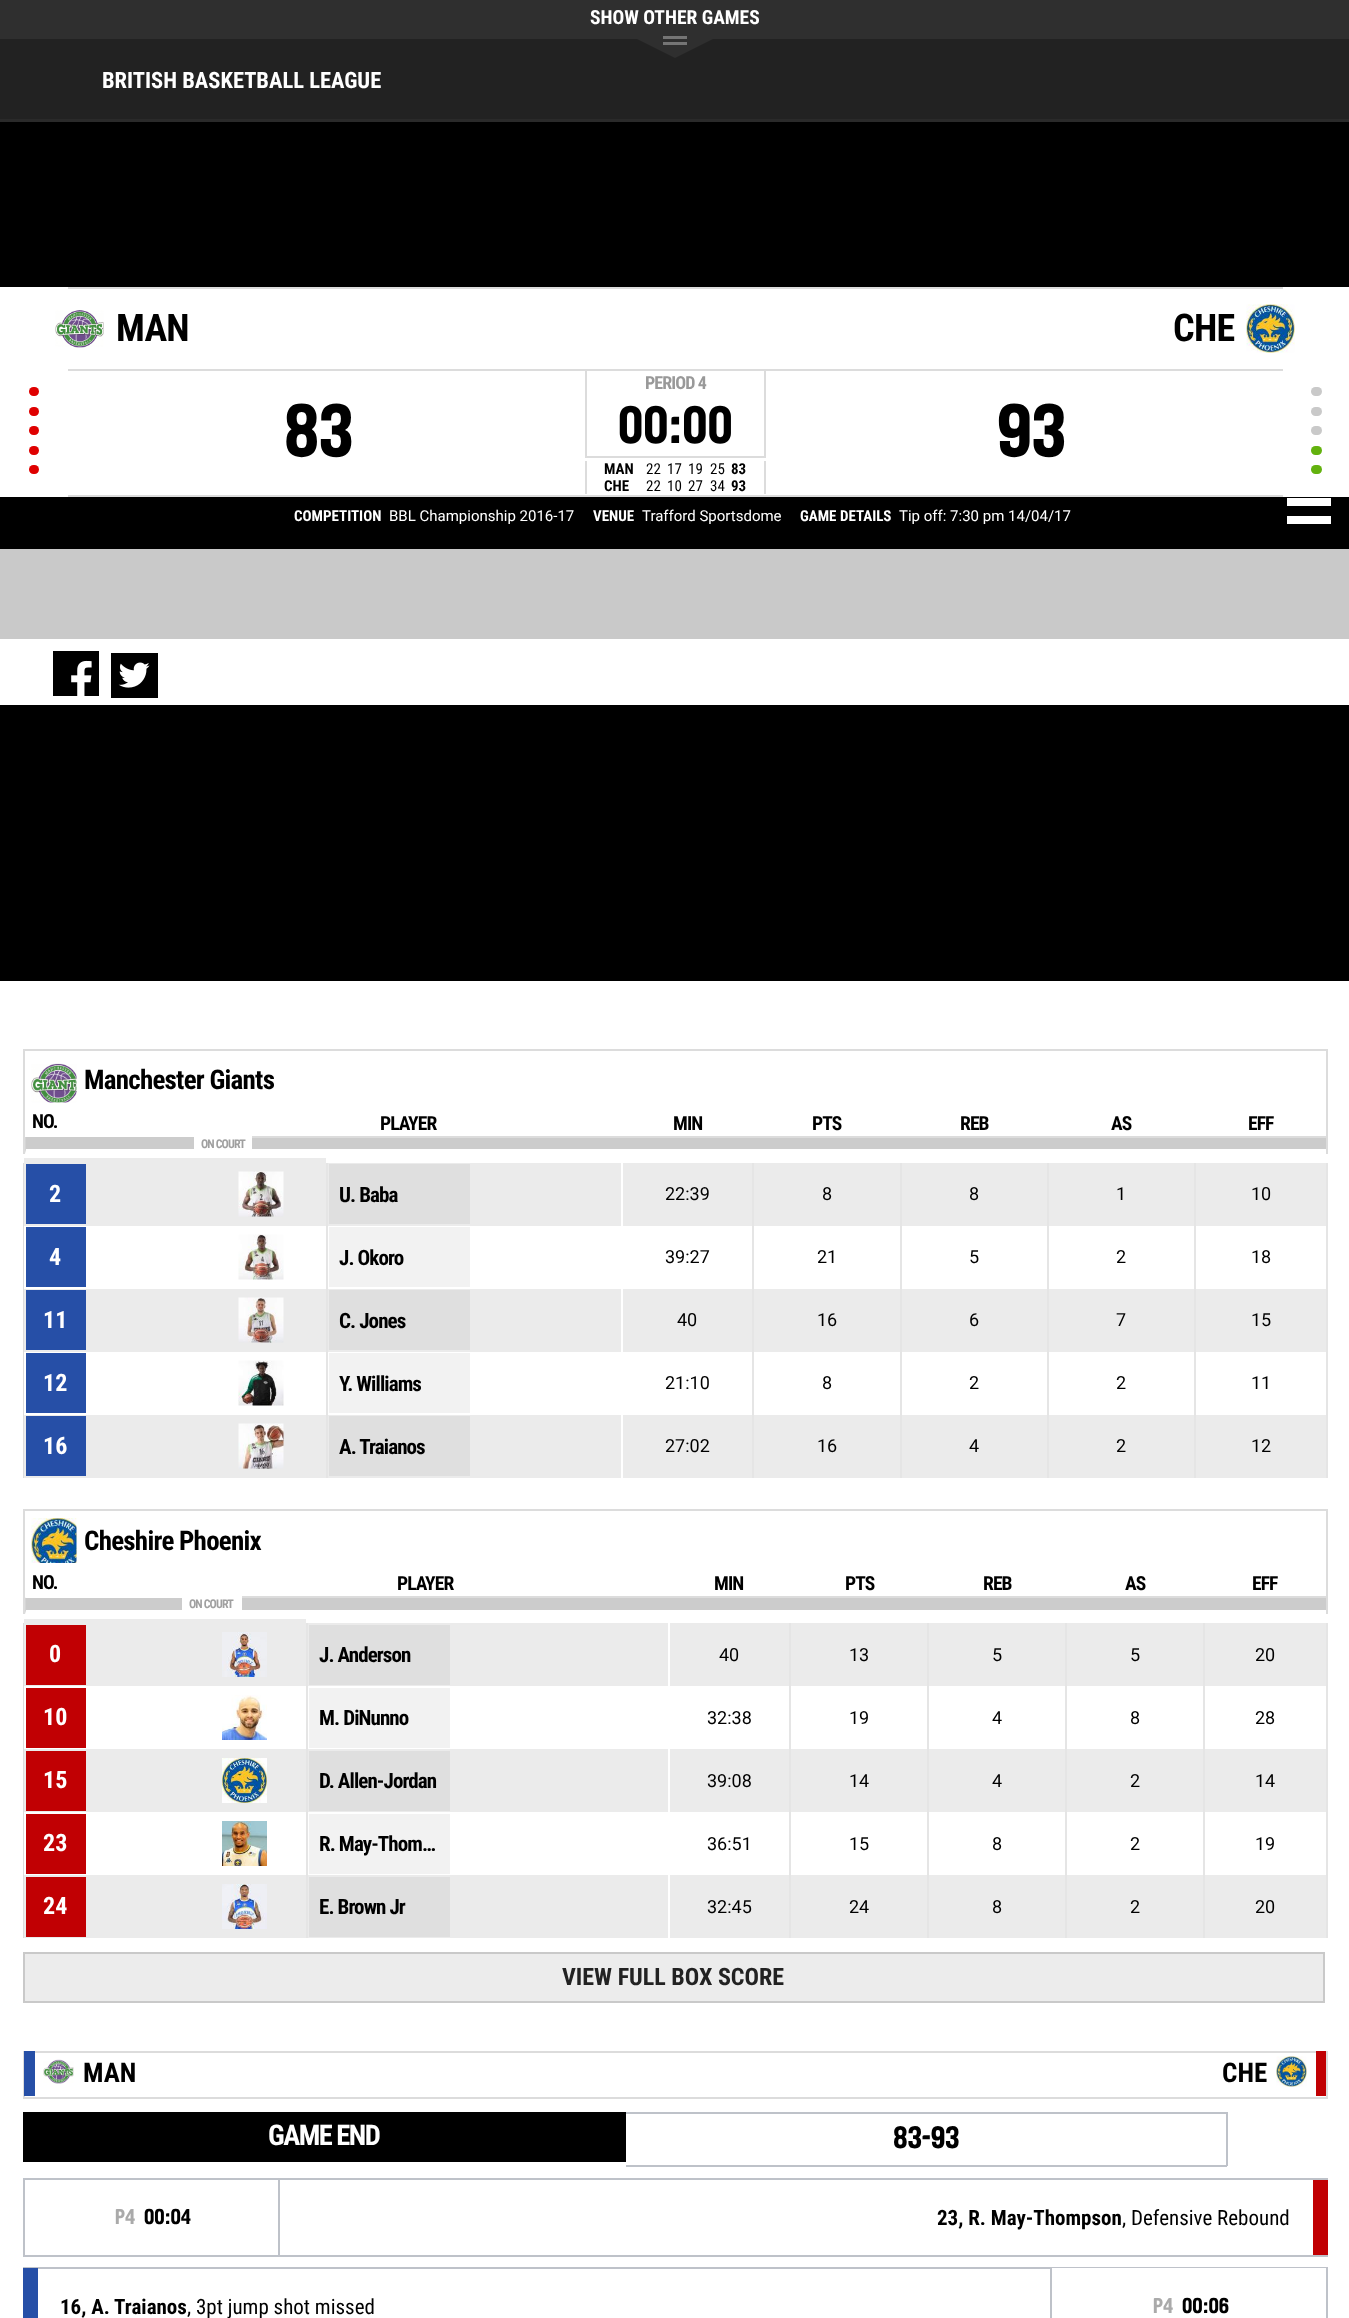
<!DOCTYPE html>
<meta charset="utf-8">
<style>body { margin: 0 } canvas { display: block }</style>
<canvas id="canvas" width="1349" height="2318"></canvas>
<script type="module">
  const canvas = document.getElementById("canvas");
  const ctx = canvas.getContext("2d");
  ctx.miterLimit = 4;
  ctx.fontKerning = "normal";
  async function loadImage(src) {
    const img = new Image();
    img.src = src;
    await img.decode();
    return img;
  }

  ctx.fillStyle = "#000000";
  ctx.fillRect(0, 0, 1349, 2318);
  ctx.fillStyle = "#222222";
  ctx.fillRect(0, 39, 1349, 80);
  ctx.fillStyle = "#2a2a2a";
  ctx.fillRect(0, 119, 1349, 3);
  ctx.fillStyle = "#2f2f2f";
  ctx.fillRect(0, 0, 1349, 39);
  ctx.font = "bold 19.5px Roboto Condensed";
  ctx.fillStyle = "#ffffff";
  ctx.fillText("SHOW OTHER GAMES", 590, 24);
  ctx.fillStyle = "#2f2f2f";
  ctx.beginPath();
  ctx.moveTo(615, 28);
  ctx.lineTo(735, 28);
  ctx.lineTo(675, 58);
  ctx.closePath();
  ctx.fill();
  ctx.fillStyle = "#757575";
  ctx.fillRect(663, 36, 24, 3);
  ctx.fillRect(663, 42, 24, 3);
  ctx.font = "bold 22.5px Roboto Condensed";
  ctx.fillStyle = "#ffffff";
  ctx.fillText("BRITISH BASKETBALL LEAGUE", 102, 88);
  ctx.fillRect(0, 287, 1349, 210);
  ctx.fillStyle = "#dcdcdc";
  ctx.fillRect(68, 287, 1215, 2);
  ctx.drawImage(await loadImage("img1.png"), 55, 310, 49, 38);
  ctx.letterSpacing = "-0.75px";
  ctx.font = "bold 38px Roboto Condensed";
  ctx.fillStyle = "#000000";
  ctx.fillText("MAN", 116, 341);
  ctx.fillStyle = "#df0000";
  ctx.beginPath();
  ctx.roundRect(29, 387, 10, 9, 4.5);
  ctx.fill();
  ctx.beginPath();
  ctx.roundRect(29, 407, 10, 9, 4.5);
  ctx.fill();
  ctx.beginPath();
  ctx.roundRect(29, 426, 10, 9, 4.5);
  ctx.fill();
  ctx.beginPath();
  ctx.roundRect(29, 446, 10, 9, 4.5);
  ctx.fill();
  ctx.beginPath();
  ctx.roundRect(29, 465, 10, 9, 4.5);
  ctx.fill();
  ctx.letterSpacing = "0px";
  ctx.font = "72px 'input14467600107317'";
  ctx.fillStyle = "#000000";
  ctx.fillText("83", 284, 456);
  ctx.fillStyle = "#dcdcdc";
  ctx.fillRect(68, 369, 1215, 2);
  ctx.fillRect(68, 495, 1215, 2);
  ctx.fillRect(764, 371, 2, 87);
  ctx.fillRect(585, 371, 2, 24);
  ctx.letterSpacing = "-0.9px";
  ctx.font = "bold 18px Roboto Condensed";
  ctx.fillStyle = "#999999";
  ctx.fillText("PERIOD 4", 645, 389);
  ctx.fillStyle = "#dcdcdc";
  ctx.fillRect(585, 456, 180, 2);
  ctx.fillRect(585, 393, 2, 65);
  ctx.letterSpacing = "0px";
  ctx.font = "51px 'input14467600107317'";
  ctx.fillStyle = "#000000";
  ctx.fillText("00:00", 618, 443);
  ctx.fillStyle = "#dcdcdc";
  ctx.fillRect(764, 461, 2, 33);
  ctx.fillRect(585, 461, 2, 33);
  ctx.font = "bold 15px Roboto Condensed";
  ctx.fillStyle = "#000000";
  ctx.fillText("MAN", 604, 474);
  ctx.font = "15px Roboto Condensed";
  ctx.fillText("22", 646, 474);
  ctx.fillText("17", 667, 474);
  ctx.fillText("19", 688, 474);
  ctx.fillText("25", 710, 474);
  ctx.font = "bold 15px Roboto Condensed";
  ctx.fillText("83", 731, 474);
  ctx.fillText("CHE", 604, 491);
  ctx.font = "15px Roboto Condensed";
  ctx.fillText("22", 646, 491);
  ctx.fillText("10", 667, 491);
  ctx.fillText("27", 688, 491);
  ctx.fillText("34", 710, 491);
  ctx.font = "bold 15px Roboto Condensed";
  ctx.fillText("93", 731, 491);
  ctx.letterSpacing = "-0.75px";
  ctx.font = "bold 38px Roboto Condensed";
  ctx.fillText("CHE", 1173, 341);
  ctx.drawImage(await loadImage("img2.png"), 1246, 304, 49, 49);
  ctx.letterSpacing = "0px";
  ctx.font = "72px 'input14467600107317'";
  ctx.fillText("93", 997, 456);
  ctx.fillStyle = "#c9c9c9";
  ctx.beginPath();
  ctx.roundRect(1311, 387, 11, 9, 4.5);
  ctx.fill();
  ctx.beginPath();
  ctx.roundRect(1311, 407, 11, 9, 4.5);
  ctx.fill();
  ctx.beginPath();
  ctx.roundRect(1311, 426, 11, 9, 4.5);
  ctx.fill();
  ctx.fillStyle = "#63b20e";
  ctx.beginPath();
  ctx.roundRect(1311, 446, 11, 9, 4.5);
  ctx.fill();
  ctx.beginPath();
  ctx.roundRect(1311, 465, 11, 9, 4.5);
  ctx.fill();
  ctx.fillStyle = "#c9c9c9";
  ctx.fillRect(0, 549, 1349, 90);
  ctx.fillStyle = "#ffffff";
  ctx.fillRect(1287, 498, 44, 8);
  ctx.fillRect(1287, 516, 44, 8);
  ctx.fillRect(0, 639, 1349, 66);
  ctx.fillStyle = "#000000";
  ctx.fillRect(53, 651, 46, 8);
  ctx.fillRect(96, 651, 3, 45);
  ctx.fillRect(53, 651, 3, 45);
  ctx.drawImage(await loadImage("img3.png"), 56, 659, 40, 37);
  ctx.fillRect(111, 653, 47, 3);
  ctx.fillRect(155, 653, 3, 45);
  ctx.fillRect(111, 693, 47, 5);
  ctx.fillRect(111, 653, 3, 45);
  ctx.drawImage(await loadImage("img4.png"), 114, 656, 41, 37);
  ctx.font = "bold 15px Roboto Condensed";
  ctx.fillStyle = "#ffffff";
  ctx.fillText("COMPETITION", 294, 521);
  ctx.font = "15px Roboto";
  ctx.fillText("BBL Championship 2016-17", 389, 521);
  ctx.font = "bold 15px Roboto Condensed";
  ctx.fillText("VENUE", 593, 521);
  ctx.font = "15px Roboto";
  ctx.fillText("Trafford Sportsdome", 642, 521);
  ctx.font = "bold 15px Roboto Condensed";
  ctx.fillText("GAME DETAILS", 800, 521);
  ctx.font = "15px Roboto";
  ctx.fillText("Tip off: 7:30 pm 14/04/17", 899, 521);
  ctx.fillRect(0, 981, 1349, 1337);
  ctx.fillStyle = "#dcdcdc";
  ctx.fillRect(23, 1049, 1305, 2);
  ctx.fillRect(1326, 1049, 2, 105);
  ctx.fillRect(23, 1049, 2, 61);
  ctx.drawImage(await loadImage("img5.png"), 31, 1063, 46, 40);
  ctx.letterSpacing = "-0.75px";
  ctx.font = "bold 27px Roboto Condensed";
  ctx.fillStyle = "#000000";
  ctx.fillText("Manchester Giants", 84, 1089);
  ctx.fillStyle = "#cccccc";
  ctx.fillRect(25, 1137, 169, 17);
  ctx.fillStyle = "#ffffff";
  ctx.beginPath();
  ctx.moveTo(195, 1158);
  ctx.lineTo(24, 1158);
  ctx.lineTo(26, 1149);
  ctx.lineTo(195, 1149);
  ctx.closePath();
  ctx.fill();
  ctx.fillStyle = "#dcdcdc";
  ctx.beginPath();
  ctx.moveTo(24, 1158);
  ctx.lineTo(24, 1137);
  ctx.lineTo(25.5, 1137);
  ctx.lineTo(25.5, 1149);
  ctx.closePath();
  ctx.fill();
  ctx.fillRect(23, 1110, 2, 368);
  ctx.letterSpacing = "-0.9px";
  ctx.font = "bold 19.5px Roboto Condensed";
  ctx.fillStyle = "#000000";
  ctx.fillText("NO.", 32, 1128);
  ctx.fillText("PLAYER", 380, 1130);
  ctx.fillText("MIN", 673, 1130);
  ctx.fillText("PTS", 812, 1130);
  ctx.fillText("REB", 960, 1130);
  ctx.fillText("AS", 1111, 1130);
  ctx.fillStyle = "#dcdcdc";
  ctx.fillRect(252, 1136, 1076, 2);
  ctx.fillStyle = "#000000";
  ctx.fillText("EFF", 1248, 1130);
  ctx.fillStyle = "#ffffff";
  ctx.fillRect(23, 1154, 2, 9);
  ctx.fillStyle = "#cccccc";
  ctx.fillRect(252, 1138, 1074, 11);
  ctx.fillStyle = "#e5e5e5";
  ctx.fillRect(326, 1158, 2, 320);
  ctx.fillRect(752, 1158, 2, 320);
  ctx.fillRect(900, 1158, 2, 320);
  ctx.fillRect(1047, 1158, 2, 320);
  ctx.fillRect(1194, 1158, 2, 320);
  ctx.fillRect(1326, 1158, 2, 320);
  ctx.fillStyle = "#ffffff";
  ctx.fillRect(326, 1158, 1002, 5);
  ctx.font = "bold 12px Roboto Condensed";
  ctx.fillStyle = "#a0a0a0";
  ctx.fillText("ON COURT", 201, 1148);
  ctx.fillStyle = "#ebebeb";
  ctx.fillRect(24, 1158, 302, 68);
  ctx.drawImage(await loadImage("img6.png"), 238, 1171, 46, 46);
  ctx.fillStyle = "#264fa7";
  ctx.fillRect(26, 1164, 60, 60);
  ctx.letterSpacing = "0px";
  ctx.font = "bold 24px Roboto Condensed";
  ctx.fillStyle = "#ffffff";
  ctx.fillText("2", 49, 1202);
  ctx.fillStyle = "#ebebeb";
  ctx.fillRect(328, 1163, 293, 63);
  ctx.fillStyle = "#dfdfdf";
  ctx.fillRect(329, 1164, 141, 60);
  ctx.letterSpacing = "-0.9px";
  ctx.font = "bold 21px Roboto Condensed";
  ctx.fillStyle = "#000000";
  ctx.fillText("U. Baba", 339, 1202);
  ctx.fillStyle = "#ebebeb";
  ctx.fillRect(623, 1163, 129, 63);
  ctx.letterSpacing = "0px";
  ctx.font = "18px Roboto";
  ctx.fillStyle = "#000000";
  ctx.fillText("22:39", 665, 1200);
  ctx.fillStyle = "#ebebeb";
  ctx.fillRect(754, 1163, 146, 63);
  ctx.fillStyle = "#000000";
  ctx.fillText("8", 822, 1200);
  ctx.fillStyle = "#ebebeb";
  ctx.fillRect(902, 1163, 145, 63);
  ctx.fillStyle = "#000000";
  ctx.fillText("8", 969, 1200);
  ctx.fillStyle = "#ebebeb";
  ctx.fillRect(1049, 1163, 145, 63);
  ctx.fillStyle = "#000000";
  ctx.fillText("1", 1116, 1200);
  ctx.fillStyle = "#ebebeb";
  ctx.fillRect(1196, 1163, 130, 63);
  ctx.fillStyle = "#000000";
  ctx.fillText("10", 1251, 1200);
  ctx.fillStyle = "#ffffff";
  ctx.fillRect(24, 1226, 1, 63);
  ctx.fillStyle = "#264fa7";
  ctx.fillRect(26, 1227, 60, 60);
  ctx.font = "bold 24px Roboto Condensed";
  ctx.fillStyle = "#ffffff";
  ctx.fillText("4", 49, 1265);
  ctx.drawImage(await loadImage("img7.png"), 238, 1234, 46, 46);
  ctx.fillStyle = "#f2f2f2";
  ctx.fillRect(329, 1227, 141, 60);
  ctx.letterSpacing = "-0.9px";
  ctx.font = "bold 21px Roboto Condensed";
  ctx.fillStyle = "#000000";
  ctx.fillText("J. Okoro", 339, 1265);
  ctx.letterSpacing = "0px";
  ctx.font = "18px Roboto";
  ctx.fillText("39:27", 665, 1263);
  ctx.fillText("21", 817, 1263);
  ctx.fillText("5", 969, 1263);
  ctx.fillText("2", 1116, 1263);
  ctx.fillText("18", 1251, 1263);
  ctx.fillStyle = "#ebebeb";
  ctx.fillRect(24, 1289, 302, 63);
  ctx.drawImage(await loadImage("img8.png"), 238, 1297, 46, 46);
  ctx.fillStyle = "#264fa7";
  ctx.fillRect(26, 1290, 60, 60);
  ctx.font = "bold 24px Roboto Condensed";
  ctx.fillStyle = "#ffffff";
  ctx.fillText("11", 43, 1328);
  ctx.fillStyle = "#ebebeb";
  ctx.fillRect(328, 1289, 293, 63);
  ctx.fillStyle = "#dfdfdf";
  ctx.fillRect(329, 1290, 141, 60);
  ctx.letterSpacing = "-0.9px";
  ctx.font = "bold 21px Roboto Condensed";
  ctx.fillStyle = "#000000";
  ctx.fillText("C. Jones", 339, 1328);
  ctx.fillStyle = "#ebebeb";
  ctx.fillRect(623, 1289, 129, 63);
  ctx.letterSpacing = "0px";
  ctx.font = "18px Roboto";
  ctx.fillStyle = "#000000";
  ctx.fillText("40", 677, 1326);
  ctx.fillStyle = "#ebebeb";
  ctx.fillRect(754, 1289, 146, 63);
  ctx.fillStyle = "#000000";
  ctx.fillText("16", 817, 1326);
  ctx.fillStyle = "#ebebeb";
  ctx.fillRect(902, 1289, 145, 63);
  ctx.fillStyle = "#000000";
  ctx.fillText("6", 969, 1326);
  ctx.fillStyle = "#ebebeb";
  ctx.fillRect(1049, 1289, 145, 63);
  ctx.fillStyle = "#000000";
  ctx.fillText("7", 1116, 1326);
  ctx.fillStyle = "#ebebeb";
  ctx.fillRect(1196, 1289, 130, 63);
  ctx.fillStyle = "#000000";
  ctx.fillText("15", 1251, 1326);
  ctx.fillStyle = "#ffffff";
  ctx.fillRect(24, 1352, 1, 63);
  ctx.fillStyle = "#264fa7";
  ctx.fillRect(26, 1353, 60, 60);
  ctx.font = "bold 24px Roboto Condensed";
  ctx.fillStyle = "#ffffff";
  ctx.fillText("12", 43, 1391);
  ctx.drawImage(await loadImage("img9.png"), 238, 1360, 46, 46);
  ctx.fillStyle = "#f2f2f2";
  ctx.fillRect(329, 1353, 141, 60);
  ctx.letterSpacing = "-0.9px";
  ctx.font = "bold 21px Roboto Condensed";
  ctx.fillStyle = "#000000";
  ctx.fillText("Y. Williams", 339, 1391);
  ctx.letterSpacing = "0px";
  ctx.font = "18px Roboto";
  ctx.fillText("21:10", 665, 1389);
  ctx.fillText("8", 822, 1389);
  ctx.fillText("2", 969, 1389);
  ctx.fillText("2", 1116, 1389);
  ctx.fillText("11", 1251, 1389);
  ctx.fillStyle = "#ebebeb";
  ctx.fillRect(24, 1415, 302, 63);
  ctx.drawImage(await loadImage("img10.png"), 238, 1423, 46, 46);
  ctx.fillStyle = "#264fa7";
  ctx.fillRect(26, 1416, 60, 60);
  ctx.font = "bold 24px Roboto Condensed";
  ctx.fillStyle = "#ffffff";
  ctx.fillText("16", 43, 1454);
  ctx.fillStyle = "#ebebeb";
  ctx.fillRect(328, 1415, 293, 63);
  ctx.fillStyle = "#dfdfdf";
  ctx.fillRect(329, 1416, 141, 60);
  ctx.letterSpacing = "-0.9px";
  ctx.font = "bold 21px Roboto Condensed";
  ctx.fillStyle = "#000000";
  ctx.fillText("A. Traianos", 339, 1454);
  ctx.fillStyle = "#ebebeb";
  ctx.fillRect(623, 1415, 129, 63);
  ctx.letterSpacing = "0px";
  ctx.font = "18px Roboto";
  ctx.fillStyle = "#000000";
  ctx.fillText("27:02", 665, 1452);
  ctx.fillStyle = "#ebebeb";
  ctx.fillRect(754, 1415, 146, 63);
  ctx.fillStyle = "#000000";
  ctx.fillText("16", 817, 1452);
  ctx.fillStyle = "#ebebeb";
  ctx.fillRect(902, 1415, 145, 63);
  ctx.fillStyle = "#000000";
  ctx.fillText("4", 969, 1452);
  ctx.fillStyle = "#ebebeb";
  ctx.fillRect(1049, 1415, 145, 63);
  ctx.fillStyle = "#000000";
  ctx.fillText("2", 1116, 1452);
  ctx.fillStyle = "#ebebeb";
  ctx.fillRect(1196, 1415, 130, 63);
  ctx.fillStyle = "#000000";
  ctx.fillText("12", 1251, 1452);
  ctx.fillStyle = "#dcdcdc";
  ctx.fillRect(23, 1509, 1305, 2);
  ctx.fillRect(1326, 1509, 2, 62);
  ctx.fillRect(23, 1509, 2, 62);
  ctx.drawImage(await loadImage("img11.png"), 31, 1518, 46, 45);
  ctx.letterSpacing = "-0.75px";
  ctx.font = "bold 27px Roboto Condensed";
  ctx.fillStyle = "#000000";
  ctx.fillText("Cheshire Phoenix", 84, 1550);
  ctx.fillStyle = "#dcdcdc";
  ctx.fillRect(242, 1596, 1086, 2);
  ctx.fillRect(1326, 1571, 2, 43);
  ctx.fillStyle = "#cccccc";
  ctx.fillRect(25, 1598, 157, 16);
  ctx.fillStyle = "#ffffff";
  ctx.beginPath();
  ctx.moveTo(183, 1618);
  ctx.lineTo(24, 1618);
  ctx.lineTo(26, 1610);
  ctx.lineTo(183, 1610);
  ctx.closePath();
  ctx.fill();
  ctx.fillStyle = "#dcdcdc";
  ctx.beginPath();
  ctx.moveTo(24, 1618.5);
  ctx.lineTo(24, 1597.5);
  ctx.lineTo(25.5, 1597.5);
  ctx.lineTo(25.5, 1609.5);
  ctx.closePath();
  ctx.fill();
  ctx.fillRect(23, 1571, 2, 367);
  ctx.letterSpacing = "-0.9px";
  ctx.font = "bold 19.5px Roboto Condensed";
  ctx.fillStyle = "#000000";
  ctx.fillText("NO.", 32, 1589);
  ctx.fillText("PLAYER", 397, 1590);
  ctx.fillText("MIN", 714, 1590);
  ctx.fillText("PTS", 845, 1590);
  ctx.fillText("REB", 983, 1590);
  ctx.fillText("AS", 1125, 1590);
  ctx.fillText("EFF", 1252, 1590);
  ctx.fillStyle = "#ffffff";
  ctx.fillRect(23, 1614, 2, 9);
  ctx.fillStyle = "#cccccc";
  ctx.fillRect(242, 1598, 1084, 12);
  ctx.fillStyle = "#e5e5e5";
  ctx.fillRect(306, 1619, 2, 319);
  ctx.fillRect(789, 1619, 2, 319);
  ctx.fillRect(927, 1619, 2, 319);
  ctx.fillRect(1065, 1619, 2, 319);
  ctx.fillRect(1203, 1619, 2, 319);
  ctx.fillRect(1326, 1619, 2, 319);
  ctx.fillStyle = "#ffffff";
  ctx.fillRect(306, 1619, 1022, 4);
  ctx.font = "bold 12px Roboto Condensed";
  ctx.fillStyle = "#a0a0a0";
  ctx.fillText("ON COURT", 189, 1608);
  ctx.fillStyle = "#ebebeb";
  ctx.fillRect(24, 1619, 282, 67);
  ctx.drawImage(await loadImage("img12.png"), 222, 1632, 45, 45);
  ctx.fillStyle = "#c10003";
  ctx.fillRect(26, 1625, 60, 60);
  ctx.letterSpacing = "0px";
  ctx.font = "bold 24px Roboto Condensed";
  ctx.fillStyle = "#ffffff";
  ctx.fillText("0", 49, 1662);
  ctx.fillStyle = "#ebebeb";
  ctx.fillRect(308, 1623, 360, 63);
  ctx.fillStyle = "#dfdfdf";
  ctx.fillRect(309, 1625, 141, 60);
  ctx.letterSpacing = "-0.9px";
  ctx.font = "bold 21px Roboto Condensed";
  ctx.fillStyle = "#000000";
  ctx.fillText("J. Anderson", 319, 1662);
  ctx.fillStyle = "#ebebeb";
  ctx.fillRect(670, 1623, 119, 63);
  ctx.letterSpacing = "0px";
  ctx.font = "18px Roboto";
  ctx.fillStyle = "#000000";
  ctx.fillText("40", 719, 1661);
  ctx.fillStyle = "#ebebeb";
  ctx.fillRect(791, 1623, 136, 63);
  ctx.fillStyle = "#000000";
  ctx.fillText("13", 849, 1661);
  ctx.fillStyle = "#ebebeb";
  ctx.fillRect(929, 1623, 136, 63);
  ctx.fillStyle = "#000000";
  ctx.fillText("5", 992, 1661);
  ctx.fillStyle = "#ebebeb";
  ctx.fillRect(1067, 1623, 136, 63);
  ctx.fillStyle = "#000000";
  ctx.fillText("5", 1130, 1661);
  ctx.fillStyle = "#ebebeb";
  ctx.fillRect(1205, 1623, 121, 63);
  ctx.fillStyle = "#000000";
  ctx.fillText("20", 1255, 1661);
  ctx.fillStyle = "#ffffff";
  ctx.fillRect(24, 1686, 1, 63);
  ctx.fillStyle = "#c10003";
  ctx.fillRect(26, 1688, 60, 60);
  ctx.font = "bold 24px Roboto Condensed";
  ctx.fillStyle = "#ffffff";
  ctx.fillText("10", 43, 1725);
  ctx.drawImage(await loadImage("img13.png"), 222, 1695, 45, 45);
  ctx.fillStyle = "#f2f2f2";
  ctx.fillRect(309, 1688, 141, 60);
  ctx.letterSpacing = "-0.9px";
  ctx.font = "bold 21px Roboto Condensed";
  ctx.fillStyle = "#000000";
  ctx.fillText("M. DiNunno", 319, 1725);
  ctx.letterSpacing = "0px";
  ctx.font = "18px Roboto";
  ctx.fillText("32:38", 707, 1724);
  ctx.fillText("19", 849, 1724);
  ctx.fillText("4", 992, 1724);
  ctx.fillText("8", 1130, 1724);
  ctx.fillText("28", 1255, 1724);
  ctx.fillStyle = "#ebebeb";
  ctx.fillRect(24, 1749, 282, 63);
  ctx.drawImage(await loadImage("img14.png"), 222, 1758, 45, 45);
  ctx.fillStyle = "#c10003";
  ctx.fillRect(26, 1751, 60, 60);
  ctx.font = "bold 24px Roboto Condensed";
  ctx.fillStyle = "#ffffff";
  ctx.fillText("15", 43, 1788);
  ctx.fillStyle = "#ebebeb";
  ctx.fillRect(308, 1749, 360, 63);
  ctx.fillStyle = "#dfdfdf";
  ctx.fillRect(309, 1751, 141, 60);
  ctx.letterSpacing = "-0.9px";
  ctx.font = "bold 21px Roboto Condensed";
  ctx.fillStyle = "#000000";
  ctx.fillText("D. Allen-Jordan", 319, 1788);
  ctx.fillStyle = "#ebebeb";
  ctx.fillRect(670, 1749, 119, 63);
  ctx.letterSpacing = "0px";
  ctx.font = "18px Roboto";
  ctx.fillStyle = "#000000";
  ctx.fillText("39:08", 707, 1787);
  ctx.fillStyle = "#ebebeb";
  ctx.fillRect(791, 1749, 136, 63);
  ctx.fillStyle = "#000000";
  ctx.fillText("14", 849, 1787);
  ctx.fillStyle = "#ebebeb";
  ctx.fillRect(929, 1749, 136, 63);
  ctx.fillStyle = "#000000";
  ctx.fillText("4", 992, 1787);
  ctx.fillStyle = "#ebebeb";
  ctx.fillRect(1067, 1749, 136, 63);
  ctx.fillStyle = "#000000";
  ctx.fillText("2", 1130, 1787);
  ctx.fillStyle = "#ebebeb";
  ctx.fillRect(1205, 1749, 121, 63);
  ctx.fillStyle = "#000000";
  ctx.fillText("14", 1255, 1787);
  ctx.fillStyle = "#ffffff";
  ctx.fillRect(24, 1812, 1, 63);
  ctx.fillStyle = "#c10003";
  ctx.fillRect(26, 1814, 60, 60);
  ctx.font = "bold 24px Roboto Condensed";
  ctx.fillStyle = "#ffffff";
  ctx.fillText("23", 43, 1851);
  ctx.drawImage(await loadImage("img15.png"), 222, 1821, 45, 45);
  ctx.fillStyle = "#f2f2f2";
  ctx.fillRect(309, 1814, 141, 60);
  ctx.letterSpacing = "-0.9px";
  ctx.font = "bold 21px Roboto Condensed";
  ctx.fillStyle = "#000000";
  ctx.fillText("R. May-Thom…", 319, 1851);
  ctx.letterSpacing = "0px";
  ctx.font = "18px Roboto";
  ctx.fillText("36:51", 707, 1850);
  ctx.fillText("15", 849, 1850);
  ctx.fillText("8", 992, 1850);
  ctx.fillText("2", 1130, 1850);
  ctx.fillText("19", 1255, 1850);
  ctx.fillStyle = "#ebebeb";
  ctx.fillRect(24, 1875, 282, 63);
  ctx.drawImage(await loadImage("img16.png"), 222, 1884, 45, 45);
  ctx.fillStyle = "#c10003";
  ctx.fillRect(26, 1877, 60, 60);
  ctx.font = "bold 24px Roboto Condensed";
  ctx.fillStyle = "#ffffff";
  ctx.fillText("24", 43, 1914);
  ctx.fillStyle = "#ebebeb";
  ctx.fillRect(308, 1875, 360, 63);
  ctx.fillStyle = "#dfdfdf";
  ctx.fillRect(309, 1877, 141, 60);
  ctx.letterSpacing = "-0.9px";
  ctx.font = "bold 21px Roboto Condensed";
  ctx.fillStyle = "#000000";
  ctx.fillText("E. Brown Jr", 319, 1914);
  ctx.fillStyle = "#ebebeb";
  ctx.fillRect(670, 1875, 119, 63);
  ctx.letterSpacing = "0px";
  ctx.font = "18px Roboto";
  ctx.fillStyle = "#000000";
  ctx.fillText("32:45", 707, 1913);
  ctx.fillStyle = "#ebebeb";
  ctx.fillRect(791, 1875, 136, 63);
  ctx.fillStyle = "#000000";
  ctx.fillText("24", 849, 1913);
  ctx.fillStyle = "#ebebeb";
  ctx.fillRect(929, 1875, 136, 63);
  ctx.fillStyle = "#000000";
  ctx.fillText("8", 992, 1913);
  ctx.fillStyle = "#ebebeb";
  ctx.fillRect(1067, 1875, 136, 63);
  ctx.fillStyle = "#000000";
  ctx.fillText("2", 1130, 1913);
  ctx.fillStyle = "#ebebeb";
  ctx.fillRect(1205, 1875, 121, 63);
  ctx.fillStyle = "#000000";
  ctx.fillText("20", 1255, 1913);
  ctx.fillStyle = "#ececec";
  ctx.beginPath();
  ctx.rect(24, 1953, 1300, 49);
  ctx.fill();
  ctx.strokeStyle = "#c9c9c9";
  ctx.lineWidth = 2;
  ctx.stroke();
  ctx.font = "bold 24px Roboto Condensed";
  ctx.fillStyle = "#222222";
  ctx.fillText("VIEW FULL BOX SCORE", 562, 1985);
  ctx.strokeStyle = "#dcdcdc";
  ctx.strokeRect(24, 2052, 1303, 46);
  ctx.fillStyle = "#264fa7";
  ctx.fillRect(24, 2051, 11, 45);
  ctx.drawImage(await loadImage("img17.png"), 43, 2059, 31, 25);
  ctx.font = "bold 27px Roboto Condensed";
  ctx.fillStyle = "#000000";
  ctx.fillText("MAN", 83, 2082);
  ctx.fillText("CHE", 1222, 2082);
  ctx.drawImage(await loadImage("img18.png"), 1276, 2056, 31, 31);
  ctx.fillStyle = "#c10003";
  ctx.fillRect(1316, 2051, 10, 45);
  ctx.fillStyle = "#000000";
  ctx.fillRect(23, 2112, 603, 50);
  ctx.letterSpacing = "-1.5px";
  ctx.font = "bold 28.5px Roboto Condensed";
  ctx.fillStyle = "#ffffff";
  ctx.fillText("GAME END", 268, 2145);
  ctx.fillStyle = "#bec2c9";
  ctx.fillRect(626, 2112, 601, 2);
  ctx.fillRect(1226, 2112, 2, 54);
  ctx.fillRect(626, 2165, 601, 2);
  ctx.letterSpacing = "0px";
  ctx.font = "30px 'input14467600107317'";
  ctx.fillStyle = "#000000";
  ctx.fillText("83-93", 893, 2148);
  ctx.fillStyle = "#bec2c9";
  ctx.fillRect(23, 2178, 1305, 2);
  ctx.fillRect(23, 2255, 1305, 2);
  ctx.fillRect(278, 2180, 2, 75);
  ctx.fillRect(23, 2180, 2, 75);
  ctx.font = "21px 'input14467600107317'";
  ctx.fillStyle = "#aaaaaa";
  ctx.fillText("P4", 115, 2224);
  ctx.fillStyle = "#000000";
  ctx.fillText("00:04", 144, 2224);
  ctx.font = "bold 21px Roboto Condensed";
  ctx.fillText("23, R. May-Thompson", 937, 2225);
  ctx.font = "21px Roboto Condensed";
  ctx.fillText(", Defensive Rebound", 1122, 2225);
  ctx.fillStyle = "#c10003";
  ctx.fillRect(1313, 2180, 15, 75);
  ctx.fillStyle = "#bec2c9";
  ctx.fillRect(23, 2267, 1305, 2);
  ctx.fillStyle = "#264fa7";
  ctx.fillRect(23, 2268, 15, 50);
  ctx.font = "bold 21px Roboto Condensed";
  ctx.fillStyle = "#000000";
  ctx.fillText("16, A. Traianos", 60, 2314);
  ctx.font = "21px Roboto Condensed";
  ctx.fillText(", 3pt jump shot missed", 187, 2314);
  ctx.fillStyle = "#ffffff";
  ctx.fillRect(1052, 2268, 274, 1);
  ctx.fillStyle = "#bec2c9";
  ctx.fillRect(1326, 2268, 2, 50);
  ctx.fillRect(1050, 2268, 2, 50);
  ctx.font = "21px 'input14467600107317'";
  ctx.fillStyle = "#aaaaaa";
  ctx.fillText("P4", 1153, 2313);
  ctx.fillStyle = "#000000";
  ctx.fillText("00:06", 1182, 2313);
</script>
